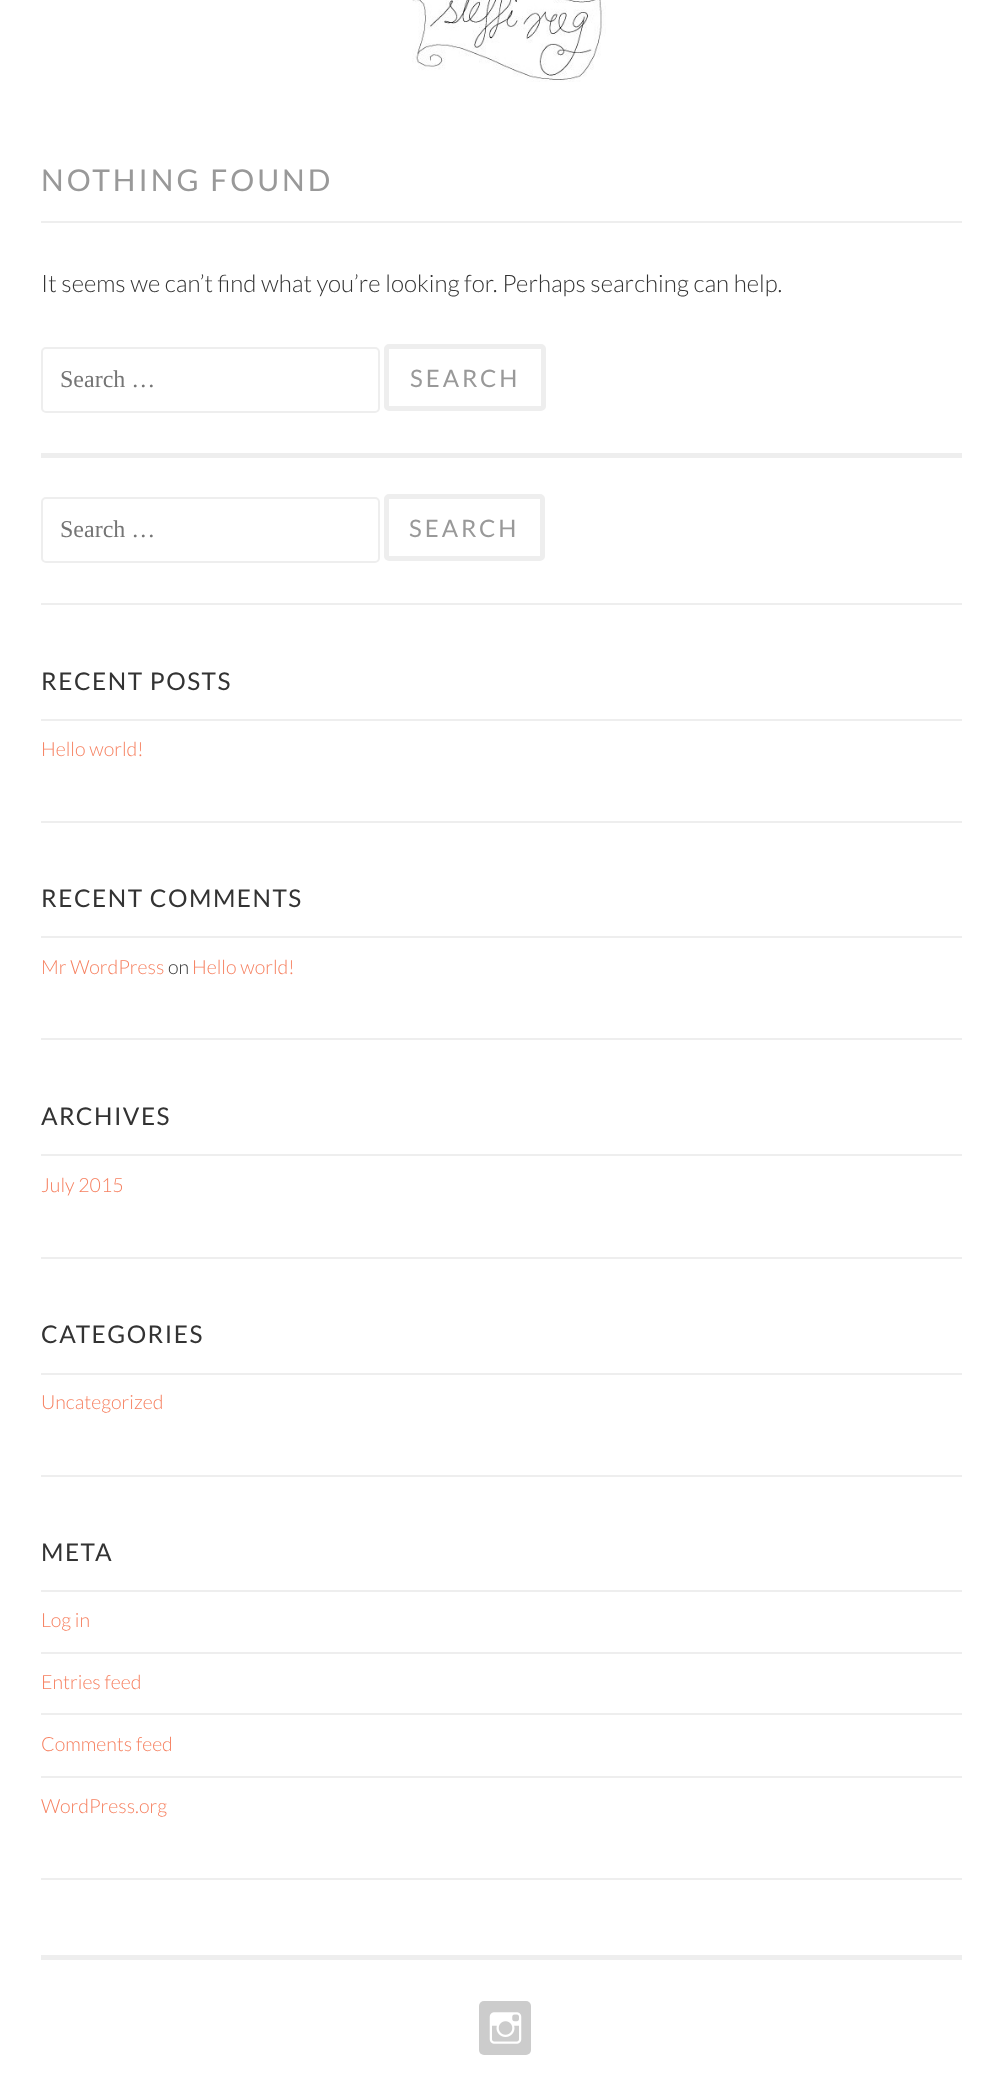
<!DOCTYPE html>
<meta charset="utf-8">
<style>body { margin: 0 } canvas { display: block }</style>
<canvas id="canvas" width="1002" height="2084"></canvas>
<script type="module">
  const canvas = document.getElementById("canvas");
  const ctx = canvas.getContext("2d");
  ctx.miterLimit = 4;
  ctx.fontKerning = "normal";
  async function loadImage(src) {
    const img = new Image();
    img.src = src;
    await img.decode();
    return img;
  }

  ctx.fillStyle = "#ffffff";
  ctx.fillRect(0, 0, 1002, 2084);
  ctx.drawImage(await loadImage("img1.png"), 412, 0, 194, 82);
  ctx.fillStyle = "#eeeeee";
  ctx.fillRect(41, 221, 921, 2);
  ctx.letterSpacing = "3px";
  ctx.font = "30px Lato";
  ctx.fillStyle = "#999999";
  ctx.fillText("NOTHING FOUND", 41, 191);
  ctx.letterSpacing = "0px";
  ctx.font = "300 24px Lato";
  ctx.fillStyle = "#333333";
  ctx.fillText("It seems we can’t find what you’re looking for. Perhaps searching can help.", 41, 292);
  ctx.beginPath();
  ctx.roundRect(42, 348, 337, 64, 4);
  ctx.strokeStyle = "#eeeeee";
  ctx.lineWidth = 2;
  ctx.stroke();
  ctx.font = "24px Liberation Serif";
  ctx.fillStyle = "#757575";
  ctx.fillText("Search …", 60, 387);
  ctx.beginPath();
  ctx.roundRect(386.5, 346.5, 157, 62, 2.5);
  ctx.lineWidth = 5;
  ctx.stroke();
  ctx.letterSpacing = "3px";
  ctx.font = "24px Lato";
  ctx.fillStyle = "#999999";
  ctx.fillText("SEARCH", 410, 387);
  ctx.fillStyle = "#eeeeee";
  ctx.fillRect(41, 453, 921, 5);
  ctx.fillRect(41, 603, 921, 2);
  ctx.beginPath();
  ctx.roundRect(42, 498, 337, 64, 4);
  ctx.lineWidth = 2;
  ctx.stroke();
  ctx.letterSpacing = "0px";
  ctx.font = "24px Liberation Serif";
  ctx.fillStyle = "#757575";
  ctx.fillText("Search …", 60, 537);
  ctx.beginPath();
  ctx.roundRect(386.5, 496.5, 156, 62, 2.5);
  ctx.lineWidth = 5;
  ctx.stroke();
  ctx.letterSpacing = "3px";
  ctx.font = "24px Lato";
  ctx.fillStyle = "#999999";
  ctx.fillText("SEARCH", 409, 537);
  ctx.fillStyle = "#eeeeee";
  ctx.fillRect(41, 821, 921, 2);
  ctx.letterSpacing = "1.5px";
  ctx.font = "24.4px Lato";
  ctx.fillStyle = "#333333";
  ctx.fillText("RECENT POSTS", 41, 690);
  ctx.fillStyle = "#eeeeee";
  ctx.fillRect(41, 719, 921, 2);
  ctx.letterSpacing = "0px";
  ctx.font = "300 19.5px Lato";
  ctx.fillStyle = "#f68060";
  ctx.fillText("Hello world!", 41, 756);
  ctx.fillStyle = "#eeeeee";
  ctx.fillRect(41, 1038, 921, 2);
  ctx.letterSpacing = "1.5px";
  ctx.font = "24.4px Lato";
  ctx.fillStyle = "#333333";
  ctx.fillText("RECENT COMMENTS", 41, 907);
  ctx.fillStyle = "#eeeeee";
  ctx.fillRect(41, 936, 921, 2);
  ctx.letterSpacing = "0px";
  ctx.font = "300 19.5px Lato";
  ctx.fillStyle = "#f68060";
  ctx.fillText("Mr WordPress", 41, 974);
  ctx.fillStyle = "#333333";
  ctx.fillText("on", 168, 974);
  ctx.fillStyle = "#f68060";
  ctx.fillText("Hello world!", 192, 974);
  ctx.fillStyle = "#eeeeee";
  ctx.fillRect(41, 1257, 921, 2);
  ctx.letterSpacing = "1.5px";
  ctx.font = "24.4px Lato";
  ctx.fillStyle = "#333333";
  ctx.fillText("ARCHIVES", 41, 1125);
  ctx.fillStyle = "#eeeeee";
  ctx.fillRect(41, 1154, 921, 2);
  ctx.letterSpacing = "0px";
  ctx.font = "300 19.5px Lato";
  ctx.fillStyle = "#f68060";
  ctx.fillText("July 2015", 41, 1192);
  ctx.fillStyle = "#eeeeee";
  ctx.fillRect(41, 1475, 921, 2);
  ctx.letterSpacing = "1.5px";
  ctx.font = "24.4px Lato";
  ctx.fillStyle = "#333333";
  ctx.fillText("CATEGORIES", 41, 1343);
  ctx.fillStyle = "#eeeeee";
  ctx.fillRect(41, 1373, 921, 2);
  ctx.letterSpacing = "0px";
  ctx.font = "300 19.5px Lato";
  ctx.fillStyle = "#f68060";
  ctx.fillText("Uncategorized", 41, 1409);
  ctx.fillStyle = "#eeeeee";
  ctx.fillRect(41, 1878, 921, 2);
  ctx.letterSpacing = "1.5px";
  ctx.font = "24.4px Lato";
  ctx.fillStyle = "#333333";
  ctx.fillText("META", 41, 1561);
  ctx.fillStyle = "#eeeeee";
  ctx.fillRect(41, 1590, 921, 2);
  ctx.letterSpacing = "0px";
  ctx.font = "300 19.5px Lato";
  ctx.fillStyle = "#f68060";
  ctx.fillText("Log in", 41, 1627);
  ctx.fillStyle = "#eeeeee";
  ctx.fillRect(41, 1652, 921, 2);
  ctx.fillStyle = "#f68060";
  ctx.fillText("Entries feed", 41, 1689);
  ctx.fillStyle = "#eeeeee";
  ctx.fillRect(41, 1713, 921, 2);
  ctx.fillStyle = "#f68060";
  ctx.fillText("Comments feed", 41, 1751);
  ctx.fillStyle = "#eeeeee";
  ctx.fillRect(41, 1776, 921, 2);
  ctx.fillStyle = "#f68060";
  ctx.fillText("WordPress.org", 41, 1813);
  ctx.fillStyle = "#eeeeee";
  ctx.fillRect(41, 1955, 921, 5);
  ctx.fillStyle = "#cccccc";
  ctx.beginPath();
  ctx.roundRect(479, 2001, 52, 54, 5);
  ctx.fill();
  ctx.drawImage(await loadImage("img2.png"), 489, 2012, 33, 32);
</script>
